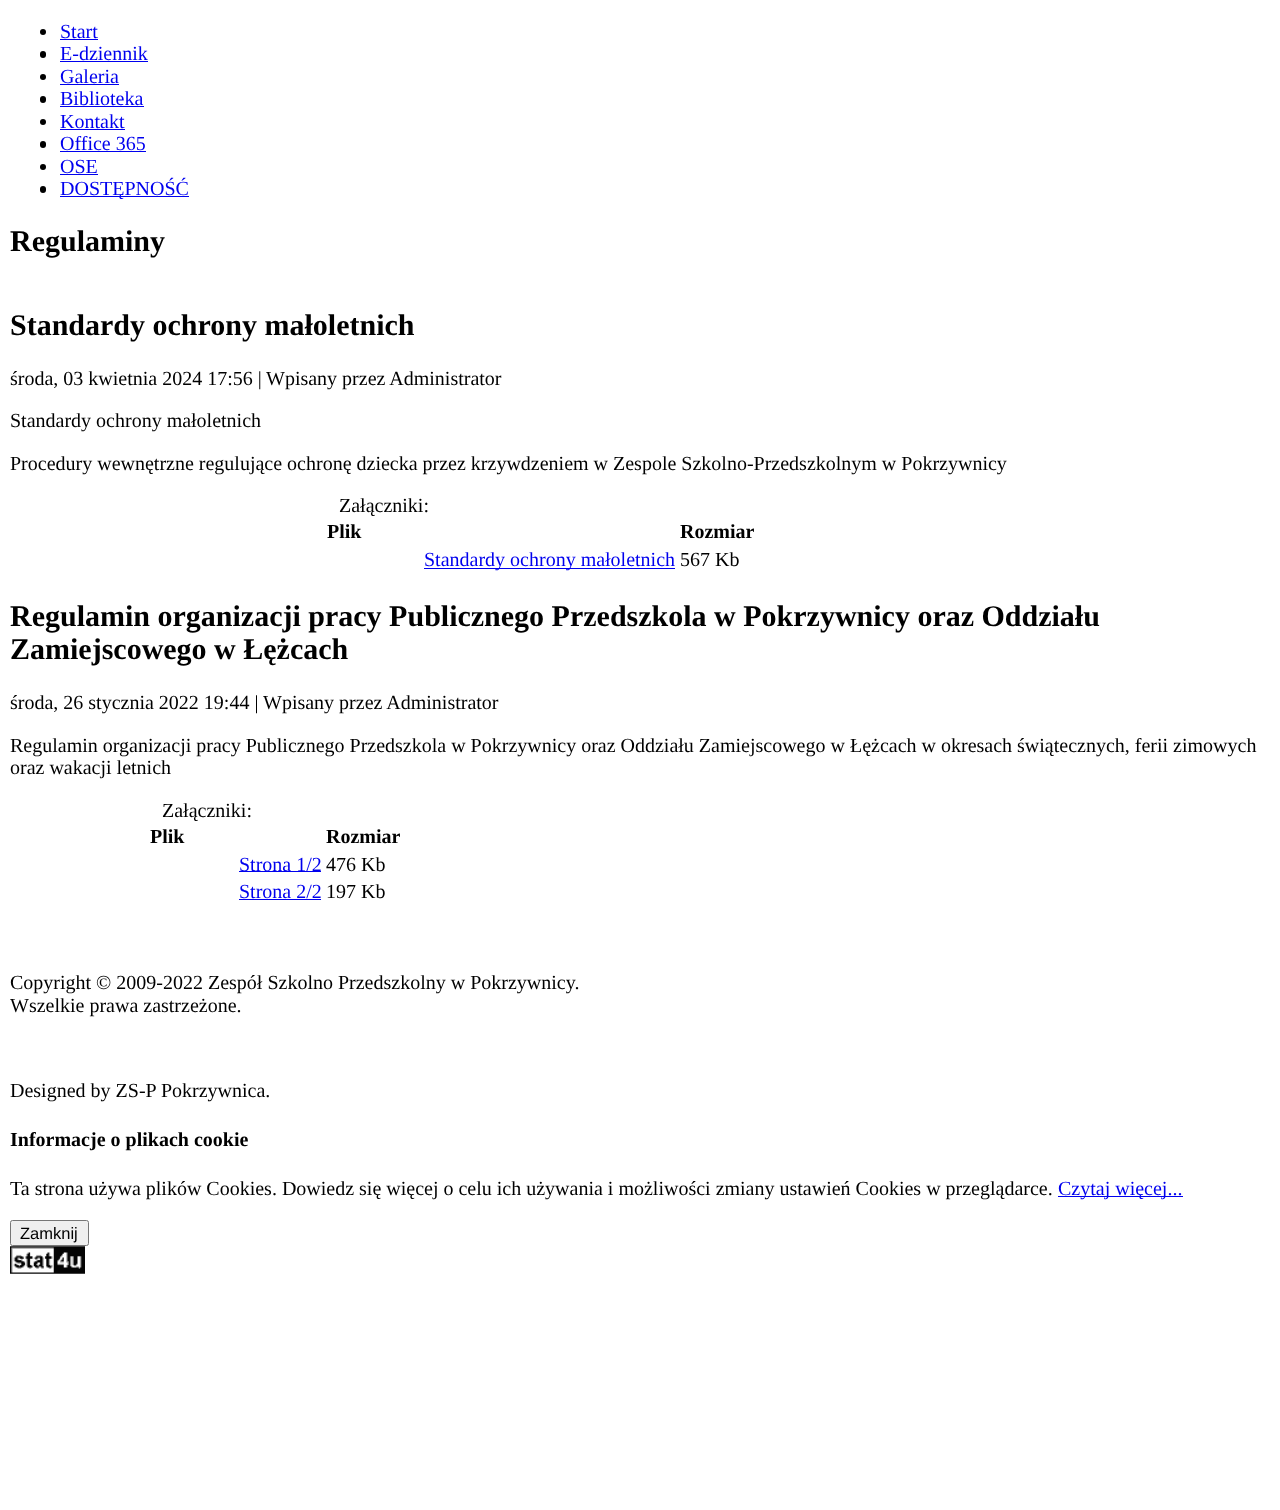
<!DOCTYPE html>
<meta charset="utf-8">
<style>body { margin: 0 } canvas { display: block }</style>
<canvas id="canvas" width="1280" height="1510"></canvas>
<script type="module">
  const canvas = document.getElementById("canvas");
  const ctx = canvas.getContext("2d");
  ctx.miterLimit = 4;
  ctx.fontKerning = "normal";
  async function loadImage(src) {
    const img = new Image();
    img.src = src;
    await img.decode();
    return img;
  }

  ctx.fillStyle = "#ffffff";
  ctx.fillRect(0, 0, 1280, 1510);
  ctx.fillStyle = "#000000";
  ctx.beginPath();
  ctx.arc(43, 32, 3, 0, Math.PI * 2);
  ctx.fill();
  ctx.font = "20px Liberation Serif";
  ctx.fillStyle = "#0000ee";
  ctx.fillText("Start", 60, 38);
  ctx.fillRect(60, 39, 38, 1);
  ctx.fillStyle = "#000000";
  ctx.beginPath();
  ctx.roundRect(40, 51, 6, 7, 3);
  ctx.fill();
  ctx.fillStyle = "#0000ee";
  ctx.fillText("E-dziennik", 60, 60);
  ctx.fillRect(60, 61, 88, 1);
  ctx.fillStyle = "#000000";
  ctx.beginPath();
  ctx.arc(43, 77, 3, 0, Math.PI * 2);
  ctx.fill();
  ctx.fillStyle = "#0000ee";
  ctx.fillText("Galeria", 60, 83);
  ctx.fillRect(60, 84, 59, 1);
  ctx.fillStyle = "#000000";
  ctx.beginPath();
  ctx.roundRect(40, 96, 6, 7, 3);
  ctx.fill();
  ctx.fillStyle = "#0000ee";
  ctx.fillText("Biblioteka", 60, 105);
  ctx.fillRect(60, 106, 84, 1);
  ctx.fillStyle = "#000000";
  ctx.beginPath();
  ctx.arc(43, 122, 3, 0, Math.PI * 2);
  ctx.fill();
  ctx.fillStyle = "#0000ee";
  ctx.fillText("Kontakt", 60, 128);
  ctx.fillRect(60, 129, 65, 1);
  ctx.fillStyle = "#000000";
  ctx.beginPath();
  ctx.roundRect(40, 141, 6, 7, 3);
  ctx.fill();
  ctx.fillStyle = "#0000ee";
  ctx.fillText("Office 365", 60, 150);
  ctx.fillRect(60, 151, 86, 1);
  ctx.fillStyle = "#000000";
  ctx.beginPath();
  ctx.arc(43, 167, 3, 0, Math.PI * 2);
  ctx.fill();
  ctx.fillStyle = "#0000ee";
  ctx.fillText("OSE", 60, 173);
  ctx.fillRect(60, 174, 38, 1);
  ctx.fillStyle = "#000000";
  ctx.beginPath();
  ctx.roundRect(40, 186, 6, 7, 3);
  ctx.fill();
  ctx.fillStyle = "#0000ee";
  ctx.fillRect(60, 196, 129, 1);
  ctx.fillText("DOSTĘPNOŚĆ", 60, 195);
  ctx.font = "bold 30px Liberation Serif";
  ctx.fillStyle = "#000000";
  ctx.fillText("Regulaminy", 10, 251);
  ctx.fillText("Standardy ochrony małoletnich", 10, 335);
  ctx.font = "20px Liberation Serif";
  ctx.fillText("środa, 03 kwietnia 2024 17:56 |", 10, 385);
  ctx.fillText("Wpisany przez Administrator", 266, 385);
  ctx.fillText("Standardy ochrony małoletnich", 10, 427);
  ctx.fillText("Procedury wewnętrzne regulujące ochronę dziecka przez krzywdzeniem w Zespole Szkolno-Przedszkolnym w Pokrzywnicy", 10, 470);
  ctx.fillText("Załączniki:", 339, 512);
  ctx.font = "bold 20px Liberation Serif";
  ctx.fillText("Plik", 327, 538);
  ctx.fillText("Rozmiar", 680, 538);
  ctx.fillStyle = "#0000ee";
  ctx.fillRect(424, 568, 251, 1);
  ctx.font = "20px Liberation Serif";
  ctx.fillText("Standardy ochrony małoletnich", 424, 566);
  ctx.fillStyle = "#000000";
  ctx.fillText("567 Kb", 680, 566);
  ctx.font = "bold 30px Liberation Serif";
  ctx.fillText("Regulamin organizacji pracy Publicznego Przedszkola w Pokrzywnicy oraz Oddziału", 10, 626);
  ctx.fillText("Zamiejscowego w Łężcach", 10, 659);
  ctx.font = "20px Liberation Serif";
  ctx.fillText("środa, 26 stycznia 2022 19:44 |", 10, 709);
  ctx.fillText("Wpisany przez Administrator", 263, 709);
  ctx.fillText("Regulamin organizacji pracy Publicznego Przedszkola w Pokrzywnicy oraz Oddziału Zamiejscowego w Łężcach w okresach świątecznych, ferii zimowych", 10, 752);
  ctx.fillText("oraz wakacji letnich", 10, 774);
  ctx.fillText("Załączniki:", 162, 817);
  ctx.font = "bold 20px Liberation Serif";
  ctx.fillText("Plik", 150, 843);
  ctx.fillText("Rozmiar", 326, 843);
  ctx.fillStyle = "#0000ee";
  ctx.fillRect(239, 871, 82, 1);
  ctx.font = "20px Liberation Serif";
  ctx.fillText("Strona 1/2", 239, 871);
  ctx.fillStyle = "#000000";
  ctx.fillText("476 Kb", 326, 871);
  ctx.fillStyle = "#0000ee";
  ctx.fillText("Strona 2/2", 239, 898);
  ctx.fillRect(239, 899, 82, 1);
  ctx.fillStyle = "#000000";
  ctx.fillText("197 Kb", 326, 898);
  ctx.fillText("Copyright © 2009-2022 Zespół Szkolno Przedszkolny w Pokrzywnicy.", 10, 989);
  ctx.fillText("Wszelkie prawa zastrzeżone.", 10, 1012);
  ctx.fillText("Designed by ZS-P Pokrzywnica.", 10, 1097);
  ctx.font = "bold 20px Liberation Serif";
  ctx.fillText("Informacje o plikach cookie", 10, 1146);
  ctx.font = "20px Liberation Serif";
  ctx.fillText("Ta strona używa plików Cookies. Dowiedz się więcej o celu ich używania i możliwości zmiany ustawień Cookies w przeglądarce.", 10, 1195);
  ctx.fillStyle = "#0000ee";
  ctx.fillRect(1058, 1196, 125, 1);
  ctx.fillText("Czytaj więcej...", 1058, 1195);
  ctx.fillStyle = "#efefef";
  ctx.beginPath();
  ctx.roundRect(10.5, 1220.5, 78, 25, 2);
  ctx.fill();
  ctx.strokeStyle = "#767676";
  ctx.stroke();
  ctx.font = "16.5px Liberation Sans";
  ctx.fillStyle = "#000000";
  ctx.fillText("Zamknij", 20, 1239);
  ctx.drawImage(await loadImage("img1.png"), 10, 1246, 75, 28);
</script>
